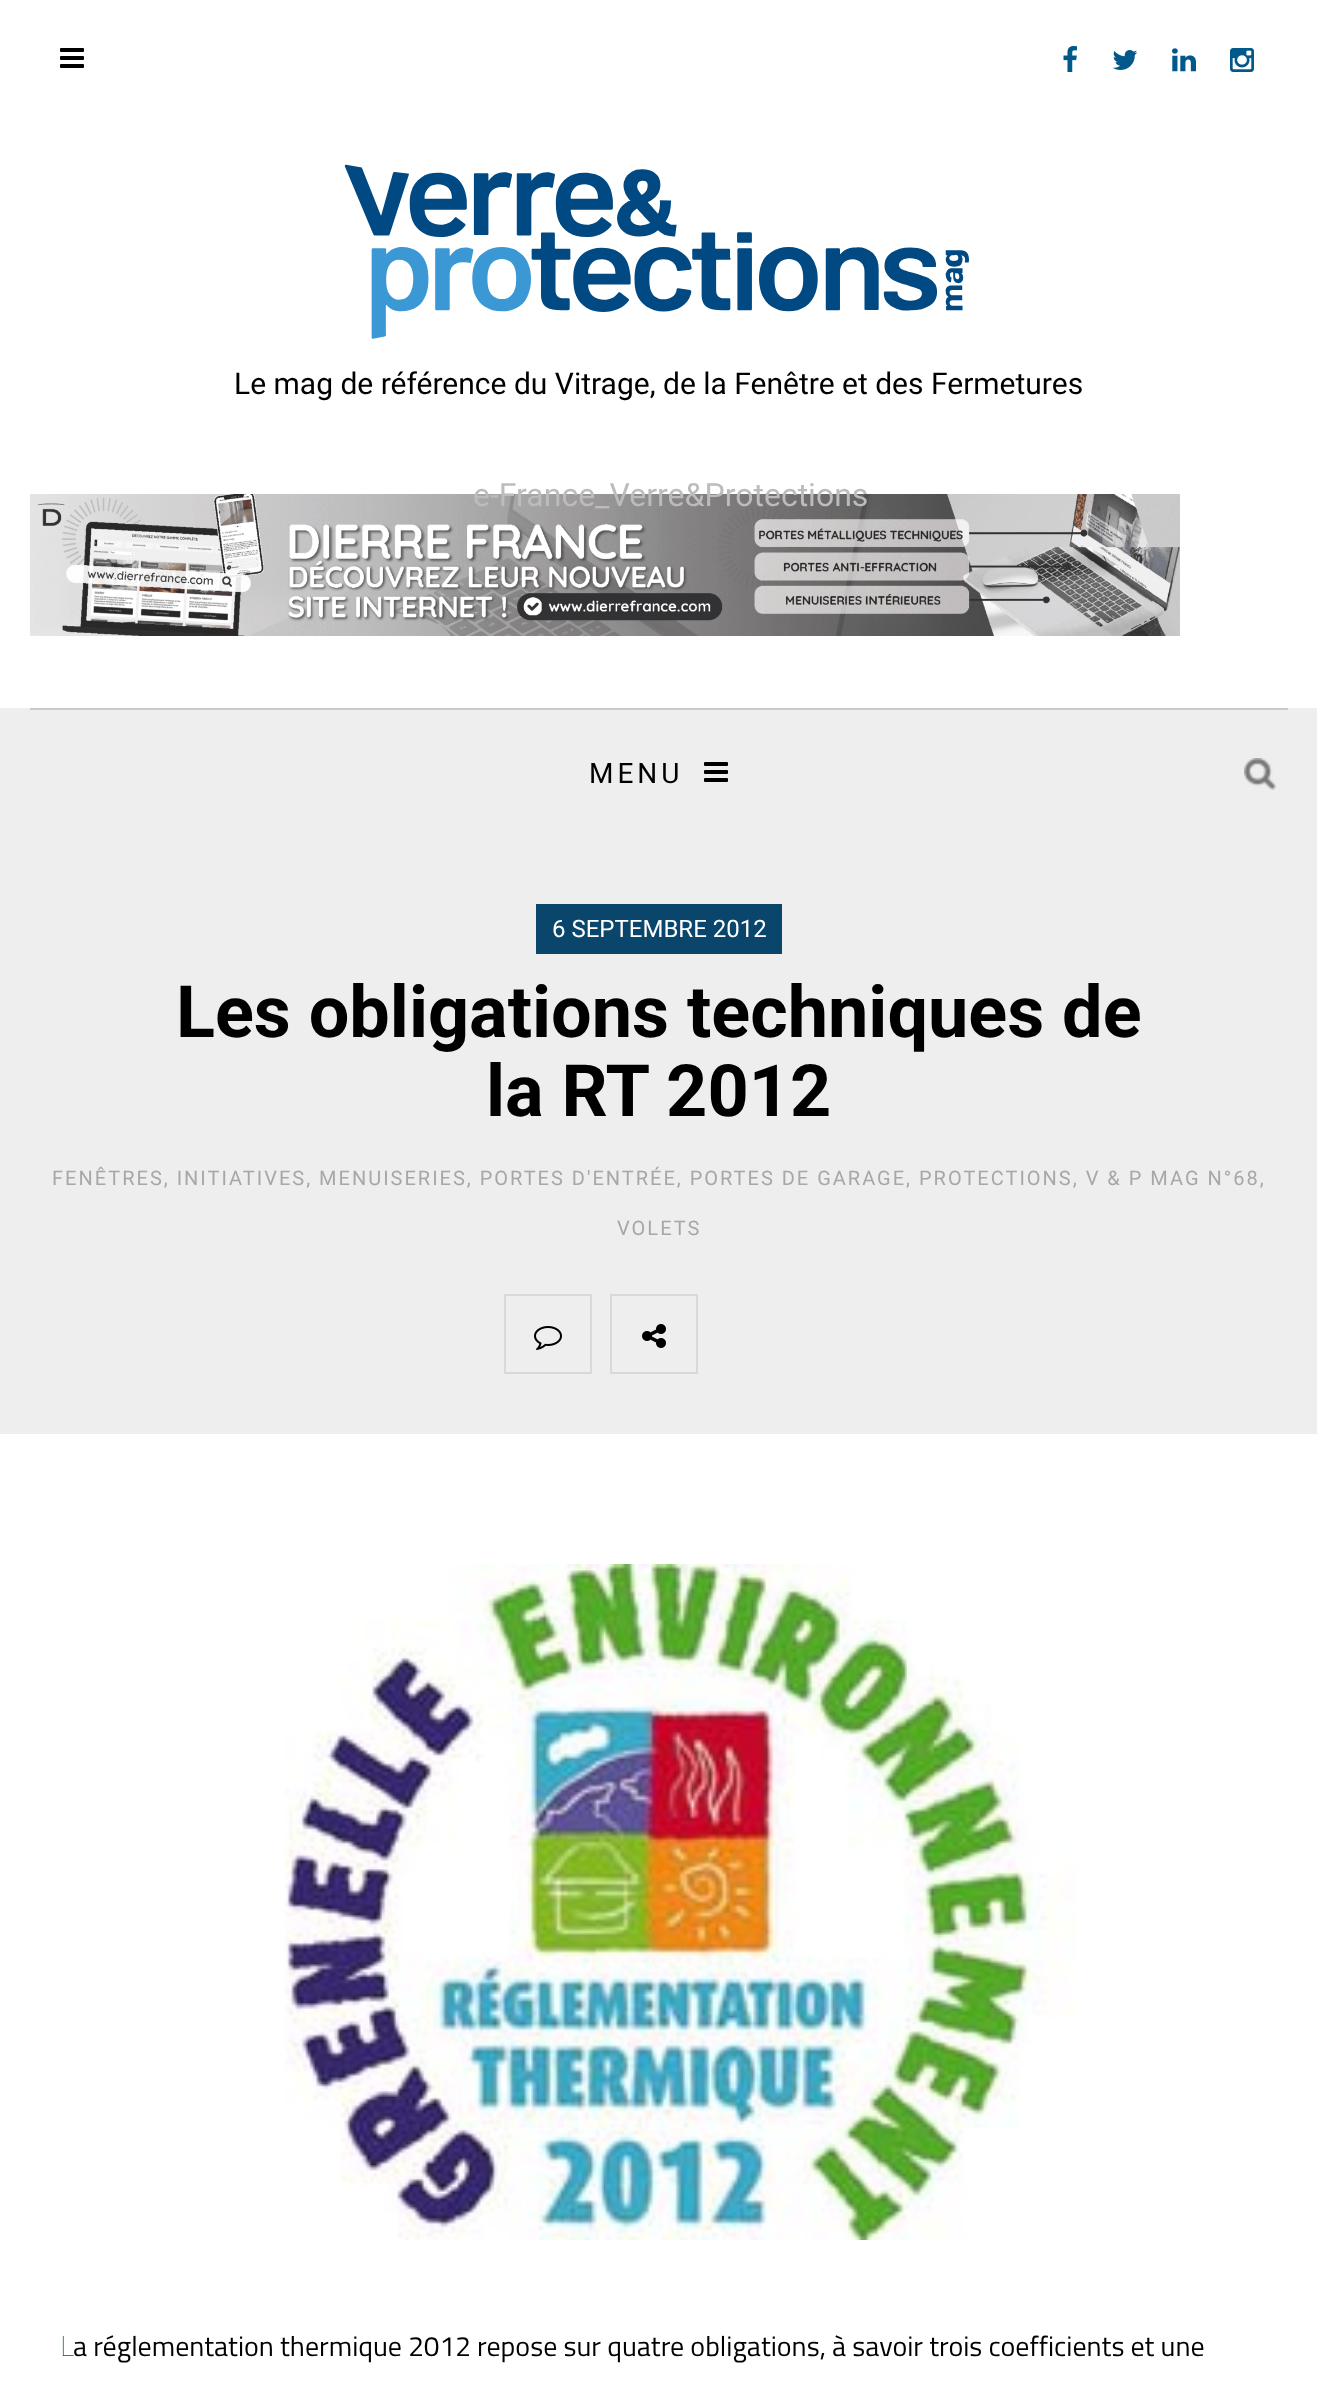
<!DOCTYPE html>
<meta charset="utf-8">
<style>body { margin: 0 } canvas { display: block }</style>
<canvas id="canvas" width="1317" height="2399"></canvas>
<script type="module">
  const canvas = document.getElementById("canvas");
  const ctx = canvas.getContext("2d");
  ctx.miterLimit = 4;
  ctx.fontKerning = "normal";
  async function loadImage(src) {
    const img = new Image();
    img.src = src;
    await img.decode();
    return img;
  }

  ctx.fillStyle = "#ffffff";
  ctx.fillRect(0, 0, 1317, 2399);
  ctx.drawImage(await loadImage("img1.png"), 60, 48, 24, 20);
  ctx.drawImage(await loadImage("img2.png"), 1063, 46, 14, 26);
  ctx.drawImage(await loadImage("img3.png"), 1112, 50, 26, 20);
  ctx.drawImage(await loadImage("img4.png"), 1172, 48, 24, 24);
  ctx.drawImage(await loadImage("img5.png"), 1230, 48, 24, 24);
  ctx.drawImage(await loadImage("img6.png"), 344, 164, 625, 175);
  ctx.font = "30px Roboto";
  ctx.fillStyle = "#000000";
  ctx.fillText("Le mag de référence du Vitrage, de la Fenêtre et des Fermetures", 234, 394);
  ctx.drawImage(await loadImage("img7.png"), 30, 494, 1150, 142);
  ctx.font = "32px Roboto";
  ctx.fillStyle = "#bdbcbc";
  ctx.fillText("e-France_Verre&Protections", 473, 506);
  ctx.fillStyle = "#eeeeee";
  ctx.fillRect(0, 708, 1317, 726);
  ctx.fillStyle = "#cacaca";
  ctx.fillRect(30, 708, 1258, 2);
  ctx.letterSpacing = "4px";
  ctx.font = "28px Roboto";
  ctx.fillStyle = "#000000";
  ctx.fillText("MENU", 589, 783);
  ctx.drawImage(await loadImage("img8.png"), 704, 762, 24, 20);
  ctx.drawImage(await loadImage("img9.png"), 1244, 758, 32, 32);
  ctx.fillStyle = "#0a466b";
  ctx.fillRect(536, 904, 246, 50);
  ctx.letterSpacing = "0px";
  ctx.font = "24px Roboto";
  ctx.fillStyle = "#ffffff";
  ctx.fillText("6 SEPTEMBRE 2012", 552, 937);
  ctx.font = "bold 72px Roboto";
  ctx.fillStyle = "#000000";
  ctx.fillText("Les obligations techniques de", 176, 1037);
  ctx.fillText("la RT 2012", 486, 1116);
  ctx.letterSpacing = "2px";
  ctx.font = "20px Roboto";
  ctx.fillStyle = "#a6a7a8";
  ctx.fillText("FENÊTRES, INITIATIVES, MENUISERIES, PORTES D'ENTRÉE, PORTES DE GARAGE, PROTECTIONS, V & P MAG N°68,", 52, 1185);
  ctx.fillText("VOLETS", 617, 1235);
  ctx.strokeStyle = "#d9d9d9";
  ctx.lineWidth = 2;
  ctx.strokeRect(505, 1295, 86, 78);
  ctx.drawImage(await loadImage("img10.png"), 534, 1326, 28, 24);
  ctx.strokeRect(611, 1295, 86, 78);
  ctx.drawImage(await loadImage("img11.png"), 642, 1324, 24, 24);
  ctx.drawImage(await loadImage("img12.png"), 284, 1564, 793, 676);
  ctx.letterSpacing = "0px";
  ctx.font = "100 28px Noto Sans";
  ctx.fillStyle = "#0a466b";
  ctx.fillText("L", 60, 2356);
  ctx.font = "28px Titillium Web";
  ctx.fillStyle = "#000000";
  ctx.fillText("a réglementation thermique 2012 repose sur quatre obligations, à savoir trois coefficients et une", 73, 2356);
</script>
